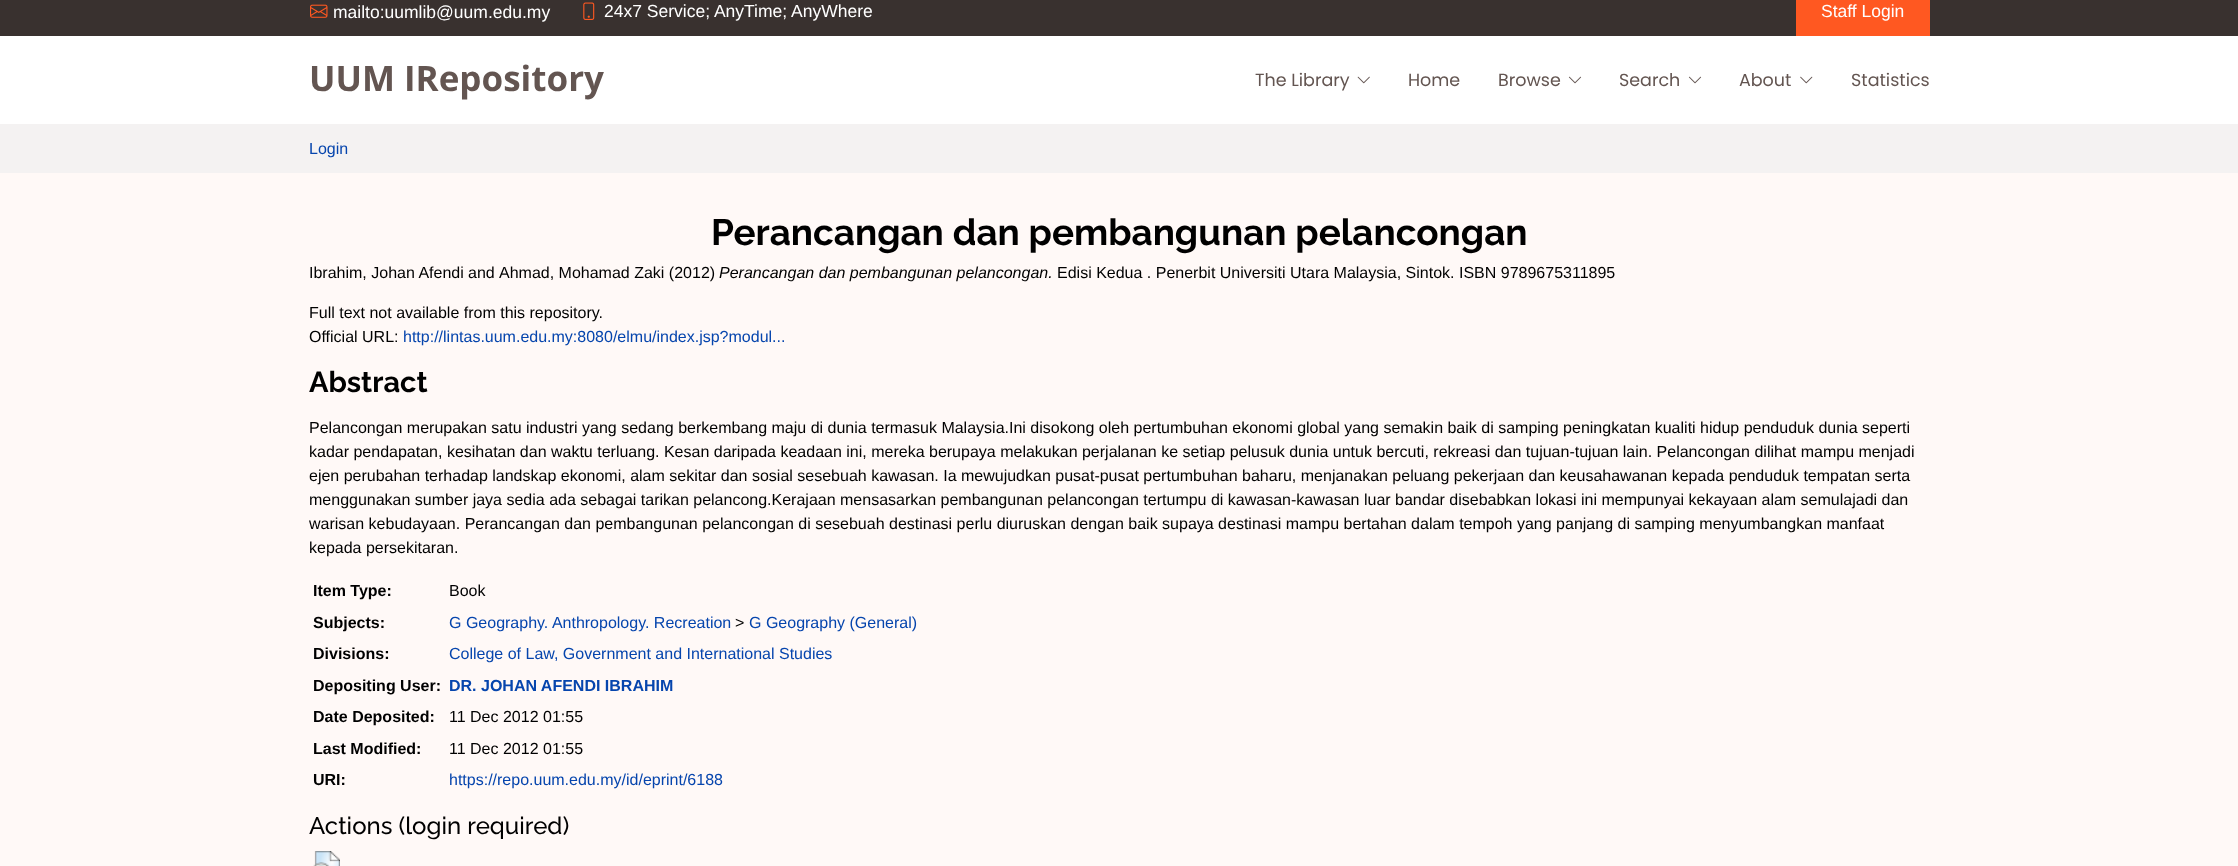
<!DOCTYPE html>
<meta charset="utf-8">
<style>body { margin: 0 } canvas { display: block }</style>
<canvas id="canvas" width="2238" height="866"></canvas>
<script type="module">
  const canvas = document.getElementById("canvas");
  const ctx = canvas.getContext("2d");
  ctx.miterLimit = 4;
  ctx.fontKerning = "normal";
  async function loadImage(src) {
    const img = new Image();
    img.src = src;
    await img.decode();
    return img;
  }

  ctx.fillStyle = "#ffffff";
  ctx.fillRect(0, 0, 2238, 866);
  ctx.fillStyle = "#39312f";
  ctx.fillRect(0, 0, 2238, 36);
  ctx.drawImage(await loadImage("img1.png"), 310, 4, 18, 14);
  ctx.font = "17.5px Liberation Sans";
  ctx.fillStyle = "#ffffff";
  ctx.fillText("mailto:uumlib@uum.edu.my", 333, 18);
  ctx.drawImage(await loadImage("img2.png"), 583, 2, 12, 18);
  ctx.fillText("24x7 Service; AnyTime; AnyWhere", 604, 17);
  ctx.fillStyle = "#ff5821";
  ctx.fillRect(1796, 0, 134, 36);
  ctx.fillStyle = "#ffffff";
  ctx.fillText("Staff Login", 1821, 17);
  ctx.font = "bold 35px Open Sans";
  ctx.fillStyle = "#635551";
  ctx.fillText("UUM IRepository", 309, 91);
  ctx.font = "17.5px Poppins";
  ctx.fillText("The Library", 1255, 86);
  ctx.drawImage(await loadImage("img3.png"), 1357, 76, 13, 8);
  ctx.fillText("Home", 1408, 86);
  ctx.fillText("Browse", 1498, 86);
  ctx.drawImage(await loadImage("img4.png"), 1568, 76, 14, 8);
  ctx.fillText("Search", 1619, 86);
  ctx.drawImage(await loadImage("img4.png"), 1688, 76, 14, 8);
  ctx.fillText("About", 1739, 86);
  ctx.drawImage(await loadImage("img5.png"), 1800, 76, 13, 8);
  ctx.fillText("Statistics", 1851, 86);
  ctx.fillStyle = "#f4f2f2";
  ctx.fillRect(0, 124, 2238, 49);
  ctx.font = "16px Liberation Sans";
  ctx.fillStyle = "#0645ad";
  ctx.fillText("Login", 309, 154);
  ctx.fillStyle = "#fff9f7";
  ctx.fillRect(0, 173, 2238, 693);
  ctx.font = "bold 36.8px Raleway";
  ctx.fillStyle = "#000000";
  ctx.fillText("Perancangan dan pembangunan pelancongan", 711, 245);
  ctx.font = "16px Liberation Sans";
  ctx.fillText("Ibrahim, Johan Afendi", 309, 278);
  ctx.fillText("and", 468, 278);
  ctx.fillText("Ahmad, Mohamad Zaki (2012)", 499, 278);
  ctx.font = "italic 16px Liberation Sans";
  ctx.fillText("Perancangan dan pembangunan pelancongan.", 719, 278);
  ctx.font = "16px Liberation Sans";
  ctx.fillText("Edisi Kedua . Penerbit Universiti Utara Malaysia, Sintok. ISBN 9789675311895", 1057, 278);
  ctx.fillText("Full text not available from this repository.", 309, 318);
  ctx.fillText("Official URL:", 309, 342);
  ctx.fillStyle = "#0645ad";
  ctx.fillText("http://lintas.uum.edu.my:8080/elmu/index.jsp?modul...", 403, 342);
  ctx.font = "bold 29px Raleway";
  ctx.fillStyle = "#000000";
  ctx.fillText("Abstract", 309, 392);
  ctx.font = "16px Liberation Sans";
  ctx.fillText("Pelancongan merupakan satu industri yang sedang berkembang maju di dunia termasuk Malaysia.Ini disokong oleh pertumbuhan ekonomi global yang semakin baik di samping peningkatan kualiti hidup penduduk dunia seperti", 309, 433);
  ctx.fillText("kadar pendapatan, kesihatan dan waktu terluang. Kesan daripada keadaan ini, mereka berupaya melakukan perjalanan ke setiap pelusuk dunia untuk bercuti, rekreasi dan tujuan-tujuan lain. Pelancongan dilihat mampu menjadi", 309, 457);
  ctx.fillText("ejen perubahan terhadap landskap ekonomi, alam sekitar dan sosial sesebuah kawasan. Ia mewujudkan pusat-pusat pertumbuhan baharu, menjanakan peluang pekerjaan dan keusahawanan kepada penduduk tempatan serta", 309, 481);
  ctx.fillText("menggunakan sumber jaya sedia ada sebagai tarikan pelancong.Kerajaan mensasarkan pembangunan pelancongan tertumpu di kawasan-kawasan luar bandar disebabkan lokasi ini mempunyai kekayaan alam semulajadi dan", 309, 505);
  ctx.fillText("warisan kebudayaan. Perancangan dan pembangunan pelancongan di sesebuah destinasi perlu diuruskan dengan baik supaya destinasi mampu bertahan dalam tempoh yang panjang di samping menyumbangkan manfaat", 309, 529);
  ctx.fillText("kepada persekitaran.", 309, 553);
  ctx.font = "bold 16px Liberation Sans";
  ctx.fillText("Item Type:", 313, 596);
  ctx.font = "16px Liberation Sans";
  ctx.fillText("Book", 449, 596);
  ctx.font = "bold 16px Liberation Sans";
  ctx.fillText("Subjects:", 313, 628);
  ctx.font = "16px Liberation Sans";
  ctx.fillStyle = "#0645ad";
  ctx.fillText("G Geography. Anthropology. Recreation", 449, 628);
  ctx.fillStyle = "#000000";
  ctx.fillText(">", 735, 628);
  ctx.fillStyle = "#0645ad";
  ctx.fillText("G Geography (General)", 749, 628);
  ctx.font = "bold 16px Liberation Sans";
  ctx.fillStyle = "#000000";
  ctx.fillText("Divisions:", 313, 659);
  ctx.font = "16px Liberation Sans";
  ctx.fillStyle = "#0645ad";
  ctx.fillText("College of Law, Government and International Studies", 449, 659);
  ctx.font = "bold 16px Liberation Sans";
  ctx.fillStyle = "#000000";
  ctx.fillText("Depositing User:", 313, 691);
  ctx.fillStyle = "#0645ad";
  ctx.fillText("DR. JOHAN AFENDI IBRAHIM", 449, 691);
  ctx.fillStyle = "#000000";
  ctx.fillText("Date Deposited:", 313, 722);
  ctx.font = "16px Liberation Sans";
  ctx.fillText("11 Dec 2012 01:55", 449, 722);
  ctx.font = "bold 16px Liberation Sans";
  ctx.fillText("Last Modified:", 313, 754);
  ctx.font = "16px Liberation Sans";
  ctx.fillText("11 Dec 2012 01:55", 449, 754);
  ctx.font = "bold 16px Liberation Sans";
  ctx.fillText("URI:", 313, 785);
  ctx.font = "16px Liberation Sans";
  ctx.fillStyle = "#0645ad";
  ctx.fillText("https://repo.uum.edu.my/id/eprint/6188", 449, 785);
  ctx.font = "500 24px Raleway";
  ctx.fillStyle = "#000000";
  ctx.fillText("Actions (login required)", 309, 834);
  ctx.drawImage(await loadImage("img6.png"), 313, 851, 27, 15);
</script>
